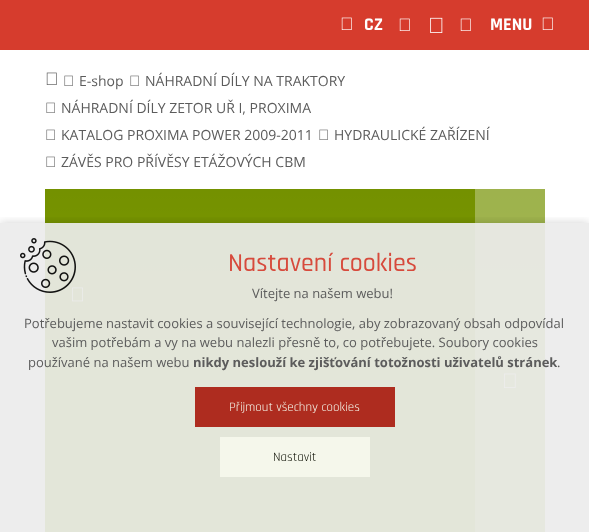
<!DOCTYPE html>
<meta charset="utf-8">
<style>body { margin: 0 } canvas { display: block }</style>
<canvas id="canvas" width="589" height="532"></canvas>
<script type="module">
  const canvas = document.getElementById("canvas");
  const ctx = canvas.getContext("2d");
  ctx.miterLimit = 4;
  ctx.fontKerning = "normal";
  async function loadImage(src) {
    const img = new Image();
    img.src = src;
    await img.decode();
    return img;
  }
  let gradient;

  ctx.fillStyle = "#ffffff";
  ctx.fillRect(0, 0, 589, 532);
  ctx.fillStyle = "#d63c2d";
  ctx.fillRect(0, 0, 589, 50);
  ctx.drawImage(await loadImage("img1.png"), 341, 17, 11, 13);
  ctx.font = "bold 18px Rajdhani";
  ctx.fillStyle = "#ffffff";
  ctx.fillText("CZ", 364, 30);
  ctx.drawImage(await loadImage("img1.png"), 399, 18, 11, 13);
  ctx.drawImage(await loadImage("img2.png"), 430, 17, 13, 16);
  ctx.drawImage(await loadImage("img1.png"), 460, 18, 11, 13);
  ctx.fillText("MENU", 490, 30);
  ctx.drawImage(await loadImage("img1.png"), 542, 17, 11, 13);
  ctx.drawImage(await loadImage("img3.png"), 46, 72, 11, 13);
  ctx.drawImage(await loadImage("img4.png"), 64, 75, 9, 11);
  ctx.font = "14px Open Sans";
  ctx.fillStyle = "#5c5c5c";
  ctx.fillText("E-shop", 79, 86);
  ctx.drawImage(await loadImage("img4.png"), 130, 75, 9, 11);
  ctx.fillText("NÁHRADNÍ DÍLY NA TRAKTORY", 145, 86);
  ctx.drawImage(await loadImage("img4.png"), 46, 102, 9, 11);
  ctx.fillText("NÁHRADNÍ DÍLY ZETOR UŘ I, PROXIMA", 61, 113);
  ctx.drawImage(await loadImage("img4.png"), 46, 129, 9, 11);
  ctx.fillText("KATALOG PROXIMA POWER 2009-2011", 61, 140);
  ctx.drawImage(await loadImage("img4.png"), 319, 129, 9, 11);
  ctx.fillText("HYDRAULICKÉ ZAŘÍZENÍ", 334, 140);
  ctx.drawImage(await loadImage("img4.png"), 46, 156, 9, 11);
  ctx.fillText("ZÁVĚS PRO PŘÍVĚSY ETÁŽOVÝCH CBM", 61, 167);
  ctx.fillStyle = "#81a100";
  ctx.fillRect(45, 189, 500, 343);
  ctx.drawImage(await loadImage("img5.png"), 72, 287, 11, 15);
  gradient = ctx.createLinearGradient(295, 189, 295, 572);
  gradient.addColorStop(0, "rgba(0, 0, 0, 0.1)");
  gradient.addColorStop(0.5, "rgba(0, 0, 0, 0)");
  gradient.addColorStop(1, "rgba(0, 0, 0, 0)");
  ctx.fillStyle = gradient;
  ctx.fillRect(45, 189, 500, 150);
  ctx.fillStyle = "rgba(255, 255, 255, 0.3)";
  ctx.fillRect(475, 189, 70, 343);
  ctx.drawImage(await loadImage("img6.png"), 504, 373, 12, 15);
  ctx.save();
  ctx.beginPath();
  ctx.rect(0, 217, 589, 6);
  ctx.clip();
  ctx.fillStyle = "rgba(1, 1, 1, 0.18)";
  ctx.filter = "blur(5px)";
  ctx.beginPath();
  ctx.rect(0, 223, 589, 309);
  ctx.fill();
  ctx.filter = "none";
  ctx.restore();
  ctx.fillStyle = "rgba(235, 235, 235, 0.92)";
  ctx.fillRect(0, 223, 589, 309);
  ctx.drawImage(await loadImage("img7.png"), 20, 238, 56, 55);
  ctx.font = "500 26px Rajdhani";
  ctx.fillStyle = "#d74a3c";
  ctx.fillText("Nastavení cookies", 228, 271);
  ctx.font = "13px Open Sans";
  ctx.fillStyle = "#5c5c5c";
  ctx.fillText("Vítejte na našem webu!", 252, 298);
  ctx.fillText("Potřebujeme nastavit cookies a související technologie, aby zobrazovaný obsah odpovídal", 24, 328);
  ctx.fillText("vašim potřebám a vy na webu nalezli přesně to, co potřebujete. Soubory cookies", 52, 347);
  ctx.fillText("používané na našem webu", 28, 367);
  ctx.font = "bold 13px Open Sans";
  ctx.fillText("nikdy neslouží ke zjišťování totožnosti uživatelů stránek", 193, 367);
  ctx.font = "13px Open Sans";
  ctx.fillText(".", 557, 367);
  ctx.fillStyle = "#ae2c1f";
  ctx.fillRect(195, 387, 200, 40);
  ctx.font = "13px Rajdhani";
  ctx.fillStyle = "#f5f7eb";
  ctx.fillText("Přijmout všechny cookies", 229, 411);
  ctx.fillRect(220, 437, 150, 40);
  ctx.fillStyle = "#0a0d00";
  ctx.fillText("Nastavit", 273, 461);
</script>
